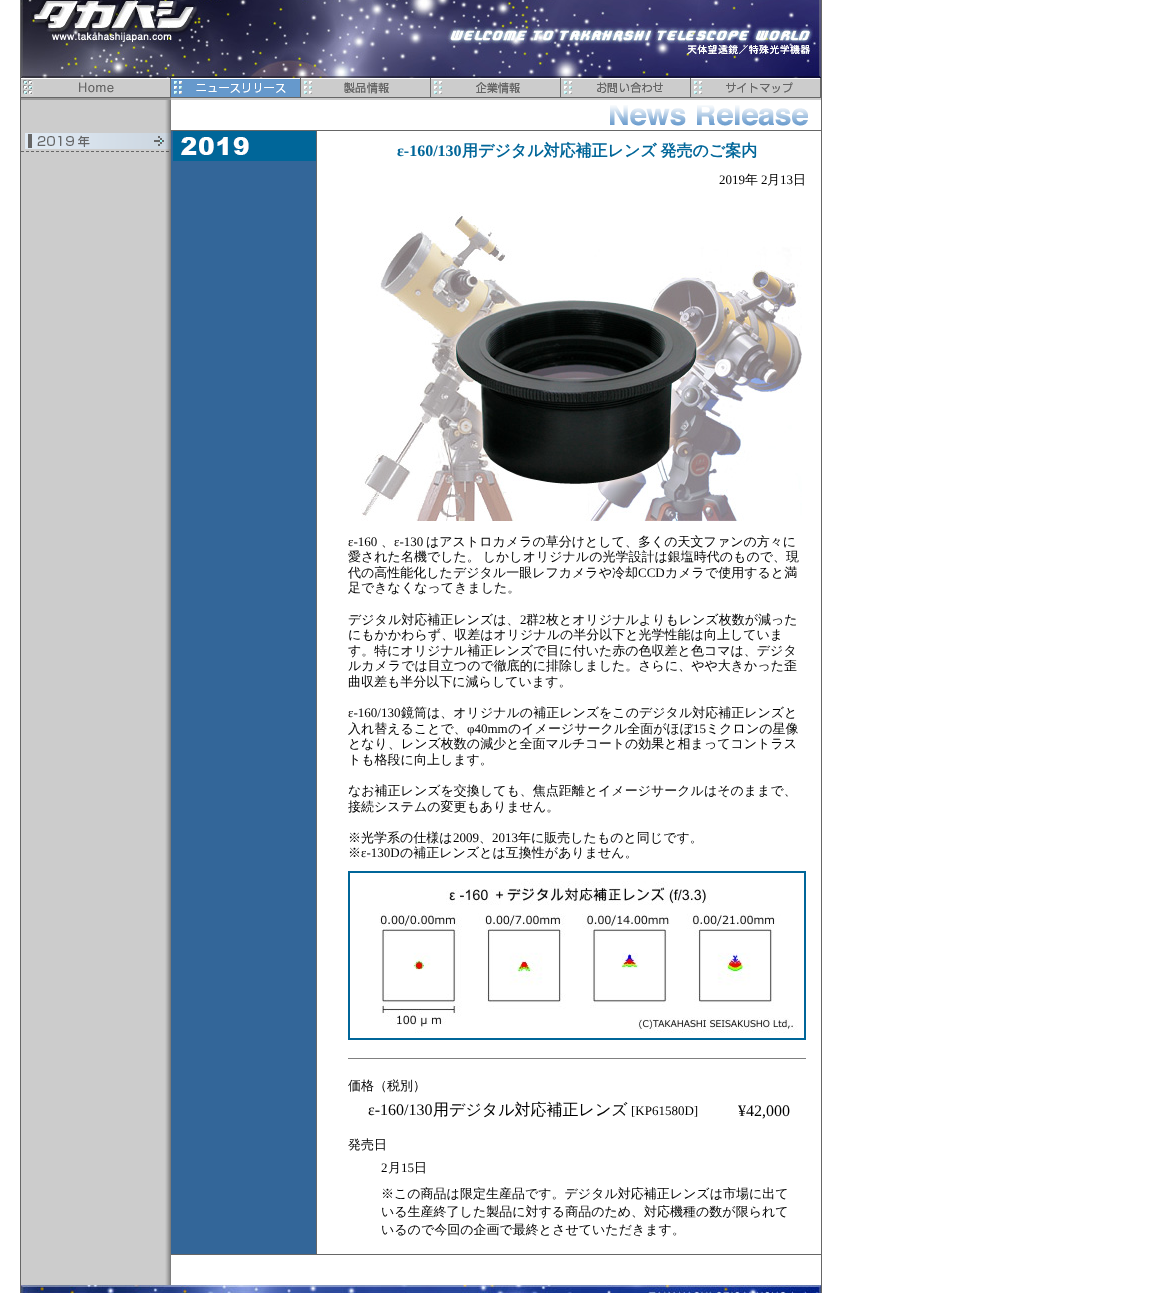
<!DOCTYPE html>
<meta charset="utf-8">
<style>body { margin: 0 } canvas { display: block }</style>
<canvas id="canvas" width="1163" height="1293"></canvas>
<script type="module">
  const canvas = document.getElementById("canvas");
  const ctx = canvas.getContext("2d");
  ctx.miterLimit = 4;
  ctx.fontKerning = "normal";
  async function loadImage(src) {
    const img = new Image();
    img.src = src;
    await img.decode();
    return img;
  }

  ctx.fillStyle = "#ffffff";
  ctx.fillRect(0, 0, 1163, 1293);
  ctx.fillStyle = "#666666";
  ctx.fillRect(20, 0, 1, 1293);
  ctx.drawImage(await loadImage("img1.png"), 21, 0, 800, 78);
  ctx.fillRect(821, 0, 1, 1293);
  ctx.drawImage(await loadImage("img2.png"), 21, 78, 150, 22);
  ctx.drawImage(await loadImage("img3.png"), 171, 78, 130, 22);
  ctx.drawImage(await loadImage("img4.png"), 301, 78, 130, 22);
  ctx.drawImage(await loadImage("img5.png"), 431, 78, 130, 22);
  ctx.drawImage(await loadImage("img6.png"), 561, 78, 130, 22);
  ctx.drawImage(await loadImage("img7.png"), 691, 78, 130, 22);
  ctx.fillStyle = "#cccccc";
  ctx.fillRect(21, 100, 144, 1185);
  ctx.drawImage(await loadImage("img8.png"), 165, 100, 6, 30);
  ctx.drawImage(await loadImage("img9.png"), 610, 105, 198, 21);
  ctx.drawImage(await loadImage("img10.png"), 165, 130, 6, 1125);
  ctx.drawImage(await loadImage("img11.png"), 21, 133, 150, 19);
  ctx.fillStyle = "#666666";
  ctx.fillRect(171, 130, 650, 1);
  ctx.fillStyle = "#336699";
  ctx.fillRect(171, 131, 145, 1123);
  ctx.drawImage(await loadImage("img12.png"), 173, 131, 143, 30);
  ctx.fillStyle = "#666666";
  ctx.fillRect(316, 131, 1, 1123);
  ctx.font = "bold 16px Liberation Serif";
  ctx.fillStyle = "#006699";
  ctx.fillText("ε-160/130", 397, 156);
  ctx.wordSpacing = "-1px";
  ctx.font = "bold 16px WenQuanYi Zen Hei";
  ctx.fillText("用デジタル対応補正レンズ 発売のご案内", 462, 156);
  ctx.wordSpacing = "0px";
  ctx.font = "13px Liberation Serif";
  ctx.fillStyle = "#000000";
  ctx.fillText("2019", 719, 184);
  ctx.font = "500 13px WenQuanYi Zen Hei";
  ctx.fillText("年", 745, 184);
  ctx.font = "13px Liberation Serif";
  ctx.fillText("2", 761, 184);
  ctx.font = "500 13px WenQuanYi Zen Hei";
  ctx.fillText("月", 767, 184);
  ctx.font = "13px Liberation Serif";
  ctx.fillText("13", 780, 184);
  ctx.font = "500 13px WenQuanYi Zen Hei";
  ctx.fillText("日", 793, 184);
  ctx.drawImage(await loadImage("img13.png"), 361, 212, 441, 309);
  ctx.font = "13px Liberation Serif";
  ctx.fillText("ε-160", 348, 546);
  ctx.font = "500 13px WenQuanYi Zen Hei";
  ctx.fillText("、", 381, 546);
  ctx.font = "13px Liberation Serif";
  ctx.fillText("ε-130", 394, 546);
  ctx.font = "500 13px WenQuanYi Zen Hei";
  ctx.fillText("はアストロカメラの草分けとして、多くの天文ファンの方々に", 426, 546);
  ctx.wordSpacing = "-1px";
  ctx.fillText("愛された名機でした。 しかしオリジナルの光学設計は銀塩時代のもので、現", 348, 561);
  ctx.wordSpacing = "0px";
  ctx.fillText("代の高性能化したデジタル一眼レフカメラや冷却", 348, 577);
  ctx.font = "13px Liberation Serif";
  ctx.fillText("CCD", 638, 577);
  ctx.font = "500 13px WenQuanYi Zen Hei";
  ctx.fillText("カメラで使用すると満", 665, 577);
  ctx.fillText("足できなくなってきました。", 348, 592);
  ctx.fillText("デジタル対応補正レンズは、", 348, 624);
  ctx.font = "13px Liberation Serif";
  ctx.fillText("2", 520, 624);
  ctx.font = "500 13px WenQuanYi Zen Hei";
  ctx.fillText("群", 526, 624);
  ctx.font = "13px Liberation Serif";
  ctx.fillText("2", 539, 624);
  ctx.font = "500 13px WenQuanYi Zen Hei";
  ctx.fillText("枚とオリジナルよりもレンズ枚数が減った", 546, 624);
  ctx.fillText("にもかかわらず、収差はオリジナルの半分以下と光学性能は向上していま", 348, 639);
  ctx.fillText("す。特にオリジナル補正レンズで目に付いた赤の色収差と色コマは、デジタ", 348, 655);
  ctx.fillText("ルカメラでは目立つので徹底的に排除しました。さらに、やや大きかった歪", 348, 670);
  ctx.fillText("曲収差も半分以下に減らしています。", 348, 686);
  ctx.font = "13px Liberation Serif";
  ctx.fillText("ε-160/130", 348, 717);
  ctx.font = "500 13px WenQuanYi Zen Hei";
  ctx.fillText("鏡筒は、オリジナルの補正レンズをこのデジタル対応補正レンズと", 401, 717);
  ctx.fillText("入れ替えることで、", 348, 733);
  ctx.font = "13px Liberation Serif";
  ctx.fillText("φ40mm", 467, 733);
  ctx.font = "500 13px WenQuanYi Zen Hei";
  ctx.fillText("のイメージサークル全面がほぼ", 508, 733);
  ctx.font = "13px Liberation Serif";
  ctx.fillText("15", 693, 733);
  ctx.font = "500 13px WenQuanYi Zen Hei";
  ctx.fillText("ミクロンの星像", 706, 733);
  ctx.fillText("となり、レンズ枚数の減少と全面マルチコートの効果と相まってコントラス", 348, 748);
  ctx.fillText("トも格段に向上します。", 348, 764);
  ctx.fillText("なお補正レンズを交換しても、焦点距離とイメージサークルはそのままで、", 348, 795);
  ctx.fillText("接続システムの変更もありません。", 348, 811);
  ctx.fillText("※光学系の仕様は", 348, 842);
  ctx.font = "13px Liberation Serif";
  ctx.fillText("2009", 453, 842);
  ctx.font = "500 13px WenQuanYi Zen Hei";
  ctx.fillText("、", 479, 842);
  ctx.font = "13px Liberation Serif";
  ctx.fillText("2013", 492, 842);
  ctx.font = "500 13px WenQuanYi Zen Hei";
  ctx.fillText("年に販売したものと同じです。", 518, 842);
  ctx.fillText("※", 348, 857);
  ctx.font = "13px Liberation Serif";
  ctx.fillText("ε-130D", 361, 857);
  ctx.font = "500 13px WenQuanYi Zen Hei";
  ctx.fillText("の補正レンズとは互換性がありません。", 400, 857);
  ctx.strokeStyle = "#006699";
  ctx.lineWidth = 2;
  ctx.strokeRect(349, 872, 456, 167);
  ctx.drawImage(await loadImage("img14.png"), 379, 881, 419, 152);
  ctx.fillStyle = "#808080";
  ctx.fillRect(348, 1058, 458, 1);
  ctx.fillStyle = "#000000";
  ctx.fillText("価格（税別）", 348, 1090);
  ctx.font = "16px Liberation Serif";
  ctx.fillText("ε-160/130", 368, 1115);
  ctx.font = "500 16px WenQuanYi Zen Hei";
  ctx.fillText("用デジタル対応補正レンズ", 433, 1115);
  ctx.font = "13px Liberation Serif";
  ctx.fillText("[KP61580D]", 631, 1115);
  ctx.font = "16px Liberation Serif";
  ctx.fillText("¥42,000", 738, 1116);
  ctx.font = "500 13px WenQuanYi Zen Hei";
  ctx.fillText("発売日", 348, 1149);
  ctx.font = "13px Liberation Serif";
  ctx.fillText("2", 381, 1172);
  ctx.font = "500 13px WenQuanYi Zen Hei";
  ctx.fillText("月", 388, 1172);
  ctx.font = "13px Liberation Serif";
  ctx.fillText("15", 401, 1172);
  ctx.font = "500 13px WenQuanYi Zen Hei";
  ctx.fillText("日", 414, 1172);
  ctx.fillText("※この商品は限定生産品です。デジタル対応補正レンズは市場に出て", 381, 1198);
  ctx.fillText("いる生産終了した製品に対する商品のため、対応機種の数が限られて", 381, 1216);
  ctx.fillText("いるので今回の企画で最終とさせていただきます。", 381, 1234);
  ctx.fillStyle = "#666666";
  ctx.fillRect(171, 1254, 650, 1);
  ctx.drawImage(await loadImage("img8.png"), 165, 1255, 6, 30);
  ctx.drawImage(await loadImage("img15.png"), 21, 1285, 800, 8);
</script>
